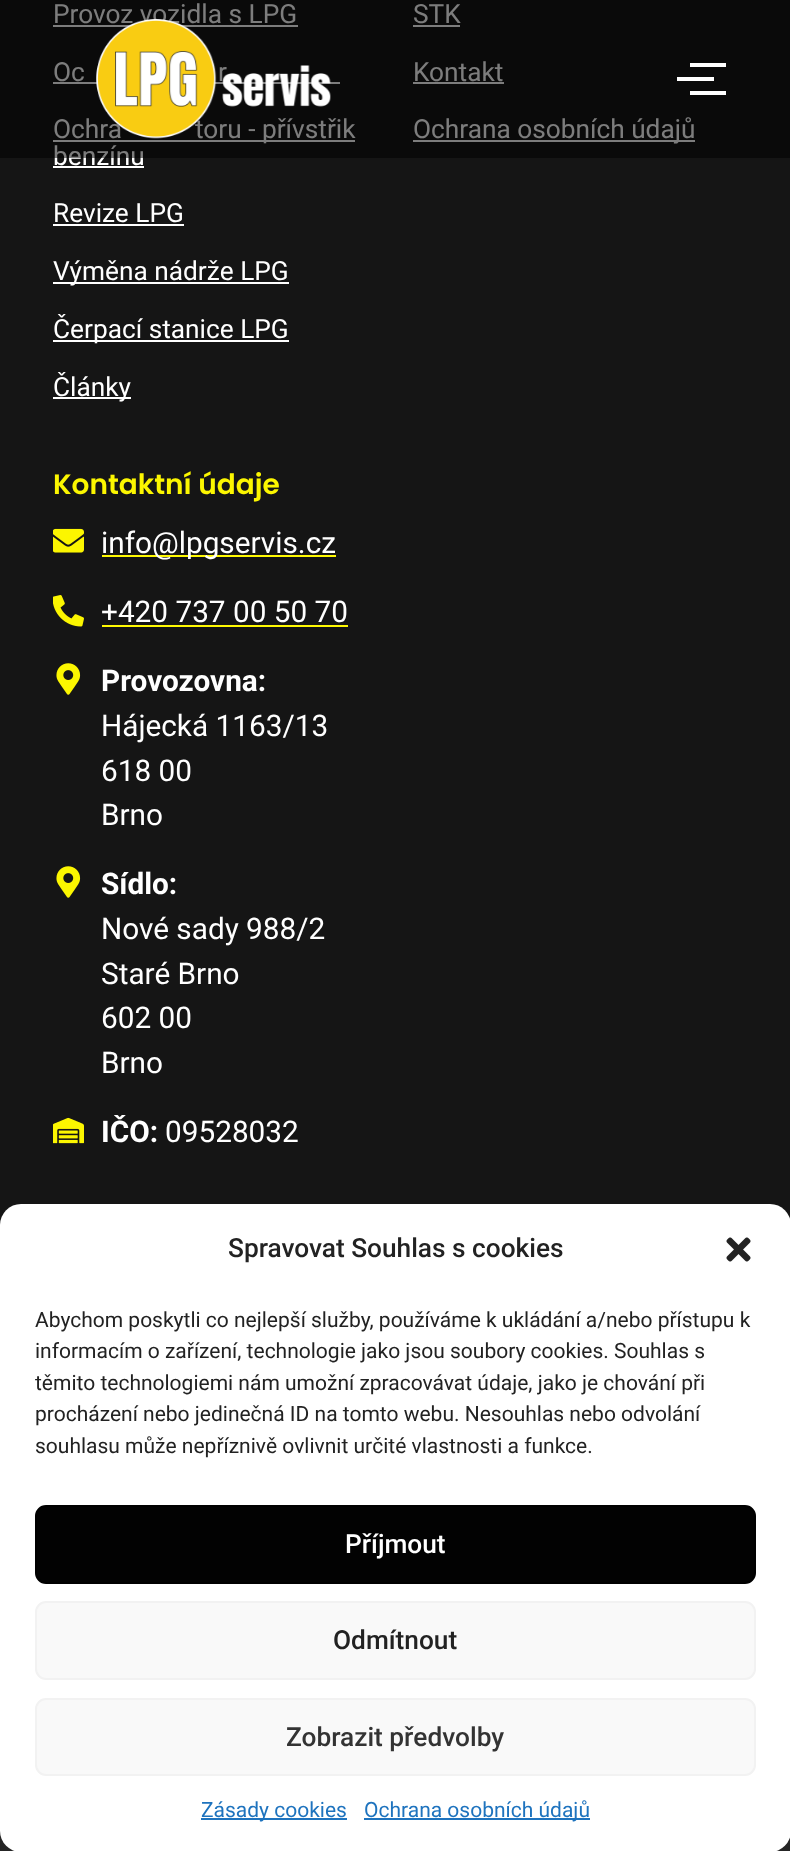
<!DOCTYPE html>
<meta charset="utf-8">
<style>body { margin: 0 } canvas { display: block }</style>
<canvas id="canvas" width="790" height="1851"></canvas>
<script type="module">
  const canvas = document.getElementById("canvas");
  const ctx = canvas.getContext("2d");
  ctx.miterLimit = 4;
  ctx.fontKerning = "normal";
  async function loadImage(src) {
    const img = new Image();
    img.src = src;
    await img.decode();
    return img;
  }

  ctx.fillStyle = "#151515";
  ctx.fillRect(0, 0, 790, 1851);
  ctx.font = "26.25px Roboto";
  ctx.fillStyle = "#ffffff";
  ctx.fillText("Provoz vozidla s LPG", 53, 23);
  ctx.fillRect(53, 25, 245, 2);
  ctx.fillText("Oc", 53, 81);
  ctx.fillText("r", 218, 81);
  ctx.fillRect(53, 82, 287, 2);
  ctx.fillText("Ochra", 53, 138);
  ctx.fillRect(53, 140, 302, 2);
  ctx.fillText("toru - přívstřik", 195, 138);
  ctx.fillText("benzínu", 53, 165);
  ctx.fillText("STK", 413, 23);
  ctx.fillRect(413, 25, 47, 2);
  ctx.fillText("Kontakt", 413, 81);
  ctx.fillRect(413, 82, 91, 2);
  ctx.fillRect(413, 140, 282, 2);
  ctx.fillText("Ochrana osobních údajů", 413, 138);
  ctx.fillStyle = "rgba(0, 0, 0, 0.51)";
  ctx.fillRect(0, 0, 790, 158);
  ctx.drawImage(await loadImage("img1.png"), 96, 19, 235, 120);
  ctx.fillStyle = "#ffffff";
  ctx.fillRect(690, 63, 36, 4);
  ctx.fillRect(677, 77, 37, 4);
  ctx.fillRect(690, 91, 36, 4);
  ctx.fillRect(53, 166, 91, 2);
  ctx.fillText("Revize LPG", 53, 222);
  ctx.fillRect(53, 224, 131, 2);
  ctx.fillRect(53, 282, 236, 2);
  ctx.fillText("Výměna nádrže LPG", 53, 280);
  ctx.fillRect(53, 340, 236, 2);
  ctx.fillText("Čerpací stanice LPG", 53, 338);
  ctx.fillRect(53, 397, 78, 2);
  ctx.fillText("Články", 53, 396);
  ctx.font = "600 28px Poppins";
  ctx.fillStyle = "#fcf600";
  ctx.fillText("Kontaktní údaje", 53, 494);
  ctx.drawImage(await loadImage("img2.png"), 53, 528, 31, 25);
  ctx.fillStyle = "#fff902";
  ctx.fillRect(102, 555, 234, 2);
  ctx.font = "29.75px Roboto";
  ctx.fillStyle = "#ffffff";
  ctx.fillText("info@lpgservis.cz", 101, 553);
  ctx.drawImage(await loadImage("img3.png"), 53, 595, 31, 32);
  ctx.fillText("+420 737 00 50 70", 101, 622);
  ctx.fillStyle = "#fff902";
  ctx.fillRect(102, 625, 246, 2);
  ctx.drawImage(await loadImage("img4.png"), 56, 663, 25, 32);
  ctx.font = "bold 29.75px Roboto";
  ctx.fillStyle = "#ffffff";
  ctx.fillText("Provozovna:", 101, 691);
  ctx.font = "29.75px Roboto";
  ctx.fillText("Hájecká 1163/13", 101, 736);
  ctx.fillText("618 00", 101, 781);
  ctx.fillText("Brno", 101, 825);
  ctx.drawImage(await loadImage("img4.png"), 56, 866, 25, 32);
  ctx.font = "bold 29.75px Roboto";
  ctx.fillText("Sídlo:", 101, 894);
  ctx.font = "29.75px Roboto";
  ctx.fillText("Nové sady 988/2", 101, 939);
  ctx.fillText("Staré Brno", 101, 984);
  ctx.fillText("602 00", 101, 1028);
  ctx.fillText("Brno", 101, 1073);
  ctx.drawImage(await loadImage("img5.png"), 53, 1117, 31, 27);
  ctx.font = "bold 29.75px Roboto";
  ctx.fillText("IČO:", 101, 1142);
  ctx.font = "29.75px Roboto";
  ctx.fillText("09528032", 165, 1142);
  ctx.fillStyle = "#252525";
  ctx.fillRect(0, 1831, 790, 20);
  ctx.fillStyle = "#ffffff";
  ctx.beginPath();
  ctx.roundRect(0, 1204, 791, 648, 21);
  ctx.fill();
  ctx.font = "500 26.25px Roboto";
  ctx.fillStyle = "#222222";
  ctx.fillText("Spravovat Souhlas s cookies", 228, 1257);
  ctx.drawImage(await loadImage("img6.png"), 726, 1237, 25, 25);
  ctx.font = "21px Roboto";
  ctx.fillText("Abychom poskytli co nejlepší služby, používáme k ukládání a/nebo přístupu k", 35, 1327);
  ctx.fillText("informacím o zařízení, technologie jako jsou soubory cookies. Souhlas s", 35, 1358);
  ctx.fillText("těmito technologiemi nám umožní zpracovávat údaje, jako je chování při", 35, 1390);
  ctx.fillText("procházení nebo jedinečná ID na tomto webu. Nesouhlas nebo odvolání", 35, 1421);
  ctx.fillText("souhlasu může nepříznivě ovlivnit určité vlastnosti a funkce.", 35, 1453);
  ctx.fillStyle = "#020202";
  ctx.beginPath();
  ctx.roundRect(36, 1506, 719, 77, 10);
  ctx.fill();
  ctx.strokeStyle = "#000000";
  ctx.lineWidth = 2;
  ctx.stroke();
  ctx.font = "500 26.25px Roboto";
  ctx.fillStyle = "#ffffff";
  ctx.fillText("Příjmout", 345, 1553);
  ctx.fillStyle = "#f9f9f9";
  ctx.beginPath();
  ctx.roundRect(36, 1602, 719, 77, 10);
  ctx.fill();
  ctx.strokeStyle = "#f2f2f2";
  ctx.stroke();
  ctx.fillStyle = "#222222";
  ctx.fillText("Odmítnout", 333, 1649);
  ctx.fillStyle = "#f9f9f9";
  ctx.beginPath();
  ctx.roundRect(36, 1699, 719, 76, 10);
  ctx.fill();
  ctx.stroke();
  ctx.fillStyle = "#333333";
  ctx.fillText("Zobrazit předvolby", 286, 1746);
  ctx.fillStyle = "#1e73be";
  ctx.fillRect(201, 1818, 146, 2);
  ctx.font = "21px Roboto";
  ctx.fillText("Zásady cookies", 201, 1817);
  ctx.fillRect(364, 1818, 226, 2);
  ctx.fillText("Ochrana osobních údajů", 364, 1817);
</script>
